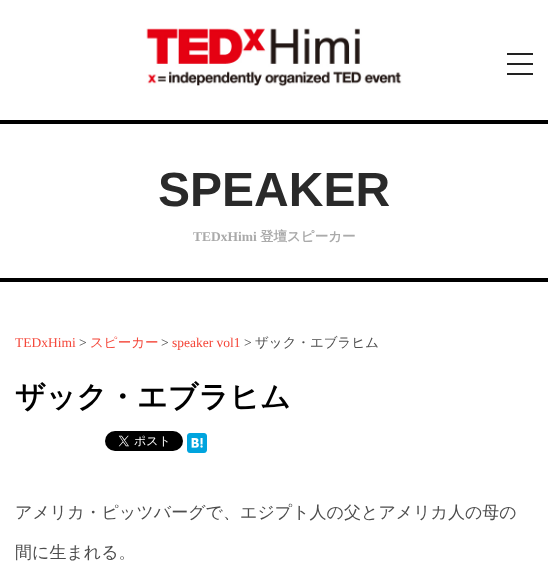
<!DOCTYPE html>
<meta charset="utf-8">
<style>body { margin: 0 } canvas { display: block }</style>
<canvas id="canvas" width="548" height="587"></canvas>
<script type="module">
  const canvas = document.getElementById("canvas");
  const ctx = canvas.getContext("2d");
  ctx.miterLimit = 4;
  ctx.fontKerning = "normal";
  async function loadImage(src) {
    const img = new Image();
    img.src = src;
    await img.decode();
    return img;
  }

  ctx.fillStyle = "#ffffff";
  ctx.fillRect(0, 0, 548, 587);
  ctx.drawImage(await loadImage("img1.png"), 146, 28, 256, 59);
  ctx.fillStyle = "#222222";
  ctx.fillRect(507, 63, 26, 2);
  ctx.fillRect(507, 53, 26, 2);
  ctx.fillRect(507, 73, 26, 2);
  ctx.fillStyle = "#000000";
  ctx.fillRect(0, 120, 548, 4);
  ctx.fillRect(0, 278, 548, 4);
  ctx.font = "bold 48px Liberation Sans";
  ctx.fillStyle = "#2a2a2a";
  ctx.fillText("SPEAKER", 158, 206);
  ctx.font = "bold 13.5px Liberation Serif";
  ctx.fillStyle = "#aaaaaa";
  ctx.fillText("TEDxHimi", 193, 241);
  ctx.font = "bold 13.5px WenQuanYi Zen Hei";
  ctx.fillText("登壇スピーカー", 260, 241);
  ctx.font = "13.5px Liberation Serif";
  ctx.fillStyle = "#f4473a";
  ctx.fillText("TEDxHimi", 15, 347);
  ctx.fillStyle = "#4d4d4d";
  ctx.fillText(">", 79, 347);
  ctx.font = "500 13.5px WenQuanYi Zen Hei";
  ctx.fillStyle = "#f4473a";
  ctx.fillText("スピーカー", 90, 347);
  ctx.font = "13.5px Liberation Serif";
  ctx.fillStyle = "#4d4d4d";
  ctx.fillText(">", 161, 347);
  ctx.fillStyle = "#f4473a";
  ctx.fillText("speaker vol1", 172, 347);
  ctx.fillStyle = "#4d4d4d";
  ctx.fillText(">", 244, 347);
  ctx.font = "500 13.5px WenQuanYi Zen Hei";
  ctx.fillText("ザック・エブラヒム", 255, 347);
  ctx.font = "bold 30px WenQuanYi Zen Hei";
  ctx.fillStyle = "#000000";
  ctx.fillText("ザック・エブラヒム", 15, 407);
  ctx.drawImage(await loadImage("img2.png"), 105, 431, 78, 20);
  ctx.drawImage(await loadImage("img3.png"), 187, 433, 20, 20);
  ctx.font = "500 17px WenQuanYi Zen Hei";
  ctx.fillStyle = "#4d4d4d";
  ctx.fillText("アメリカ・ピッツバーグで、エジプト人の父とアメリカ人の母の", 15, 518);
  ctx.fillText("間に生まれる。", 15, 558);
</script>
